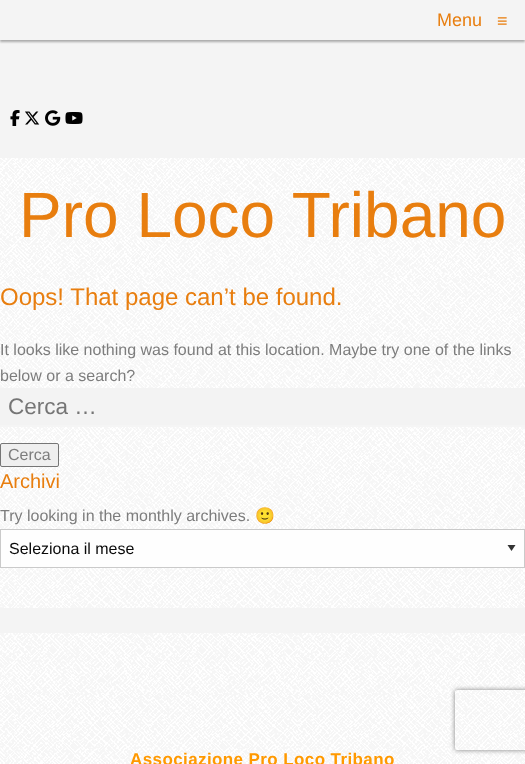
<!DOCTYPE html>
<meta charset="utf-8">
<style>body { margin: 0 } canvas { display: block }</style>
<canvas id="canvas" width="525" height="764"></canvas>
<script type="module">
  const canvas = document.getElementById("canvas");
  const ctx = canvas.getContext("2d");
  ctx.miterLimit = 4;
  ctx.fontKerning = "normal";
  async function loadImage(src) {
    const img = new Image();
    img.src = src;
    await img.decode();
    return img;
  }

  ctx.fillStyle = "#ffffff";
  ctx.fillRect(0, 0, 525, 764);
  ctx.drawImage(await loadImage("img1.png"), 0, 158, 525, 606);
  ctx.fillStyle = "#f4f4f4";
  ctx.fillRect(0, 40, 525, 118);
  ctx.fillStyle = "rgba(0, 0, 0, 0.3)";
  ctx.filter = "blur(1px)";
  ctx.beginPath();
  ctx.rect(0, 2, 525, 40);
  ctx.fill();
  ctx.filter = "none";
  ctx.fillStyle = "#f4f4f4";
  ctx.fillRect(0, 0, 525, 40);
  ctx.font = "18px Liberation Sans";
  ctx.fillStyle = "#e87e0f";
  ctx.fillText("Menu", 437, 26);
  ctx.fillText("≡", 497, 27);
  ctx.drawImage(await loadImage("img2.png"), 10, 110, 10, 16);
  ctx.drawImage(await loadImage("img3.png"), 25, 111, 15, 14);
  ctx.drawImage(await loadImage("img4.png"), 45, 110, 16, 16);
  ctx.drawImage(await loadImage("img5.png"), 65, 112, 18, 12);
  ctx.font = "64px Liberation Sans";
  ctx.fillText("Pro Loco Tribano", 19, 237);
  ctx.font = "24px Liberation Sans";
  ctx.fillText("Oops! That page can’t be found.", 0, 305);
  ctx.font = "16px Liberation Sans";
  ctx.fillStyle = "#7d7d7d";
  ctx.fillText("It looks like nothing was found at this location. Maybe try one of the links", 0, 355);
  ctx.fillText("below or a search?", 0, 381);
  ctx.fillStyle = "#f3f3f3";
  ctx.fillRect(0, 388, 525, 37);
  ctx.fillStyle = "#f5f5f5";
  ctx.fillRect(0, 425, 525, 2);
  ctx.font = "22.5px Liberation Sans";
  ctx.fillStyle = "#757575";
  ctx.fillText("Cerca …", 8, 414);
  ctx.fillStyle = "#efefef";
  ctx.beginPath();
  ctx.roundRect(0.5, 443.5, 58, 23, 1.5);
  ctx.fill();
  ctx.strokeStyle = "#767676";
  ctx.stroke();
  ctx.font = "16px Liberation Sans";
  ctx.fillStyle = "#7d7d7d";
  ctx.fillText("Cerca", 8, 460);
  ctx.font = "20px Liberation Sans";
  ctx.fillStyle = "#e87e0f";
  ctx.fillText("Archivi", 0, 488);
  ctx.font = "16px Liberation Sans";
  ctx.fillStyle = "#7d7d7d";
  ctx.fillText("Try looking in the monthly archives.", 0, 521);
  ctx.font = "16px Noto Color Emoji";
  ctx.fillText("🙂", 255, 521);
  ctx.fillStyle = "#fefefe";
  ctx.fillRect(1, 530, 523, 37);
  ctx.fillStyle = "#333333";
  ctx.beginPath();
  ctx.moveTo(507.5, 545);
  ctx.lineTo(515.5, 545);
  ctx.lineTo(511.5, 551);
  ctx.closePath();
  ctx.fill();
  ctx.strokeStyle = "#cacaca";
  ctx.strokeRect(0.5, 529.5, 524, 38);
  ctx.font = "16px Liberation Sans";
  ctx.fillStyle = "#0a0a0a";
  ctx.fillText("Seleziona il mese", 9, 554);
  ctx.fillStyle = "#f4f4f4";
  ctx.fillRect(0, 608, 525, 25);
  ctx.letterSpacing = "0.4px";
  ctx.font = "bold 17px Liberation Sans";
  ctx.fillStyle = "#ff9900";
  ctx.fillText("Associazione Pro Loco Tribano", 130, 765);
  ctx.save();
  ctx.beginPath();
  ctx.moveTo(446, 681);
  ctx.lineTo(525, 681);
  ctx.lineTo(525, 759);
  ctx.lineTo(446, 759);
  ctx.closePath();
  ctx.moveTo(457, 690);
  ctx.lineTo(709, 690);
  ctx.bezierCurveTo(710, 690, 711, 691, 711, 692);
  ctx.lineTo(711, 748);
  ctx.bezierCurveTo(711, 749, 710, 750, 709, 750);
  ctx.lineTo(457, 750);
  ctx.bezierCurveTo(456, 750, 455, 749, 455, 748);
  ctx.lineTo(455, 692);
  ctx.bezierCurveTo(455, 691, 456, 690, 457, 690);
  ctx.closePath();
  ctx.clip("evenodd");
  ctx.fillStyle = "#808080";
  ctx.filter = "blur(2.5px)";
  ctx.beginPath();
  ctx.roundRect(455, 690, 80, 60, 2);
  ctx.fill();
  ctx.filter = "none";
  ctx.restore();
</script>
